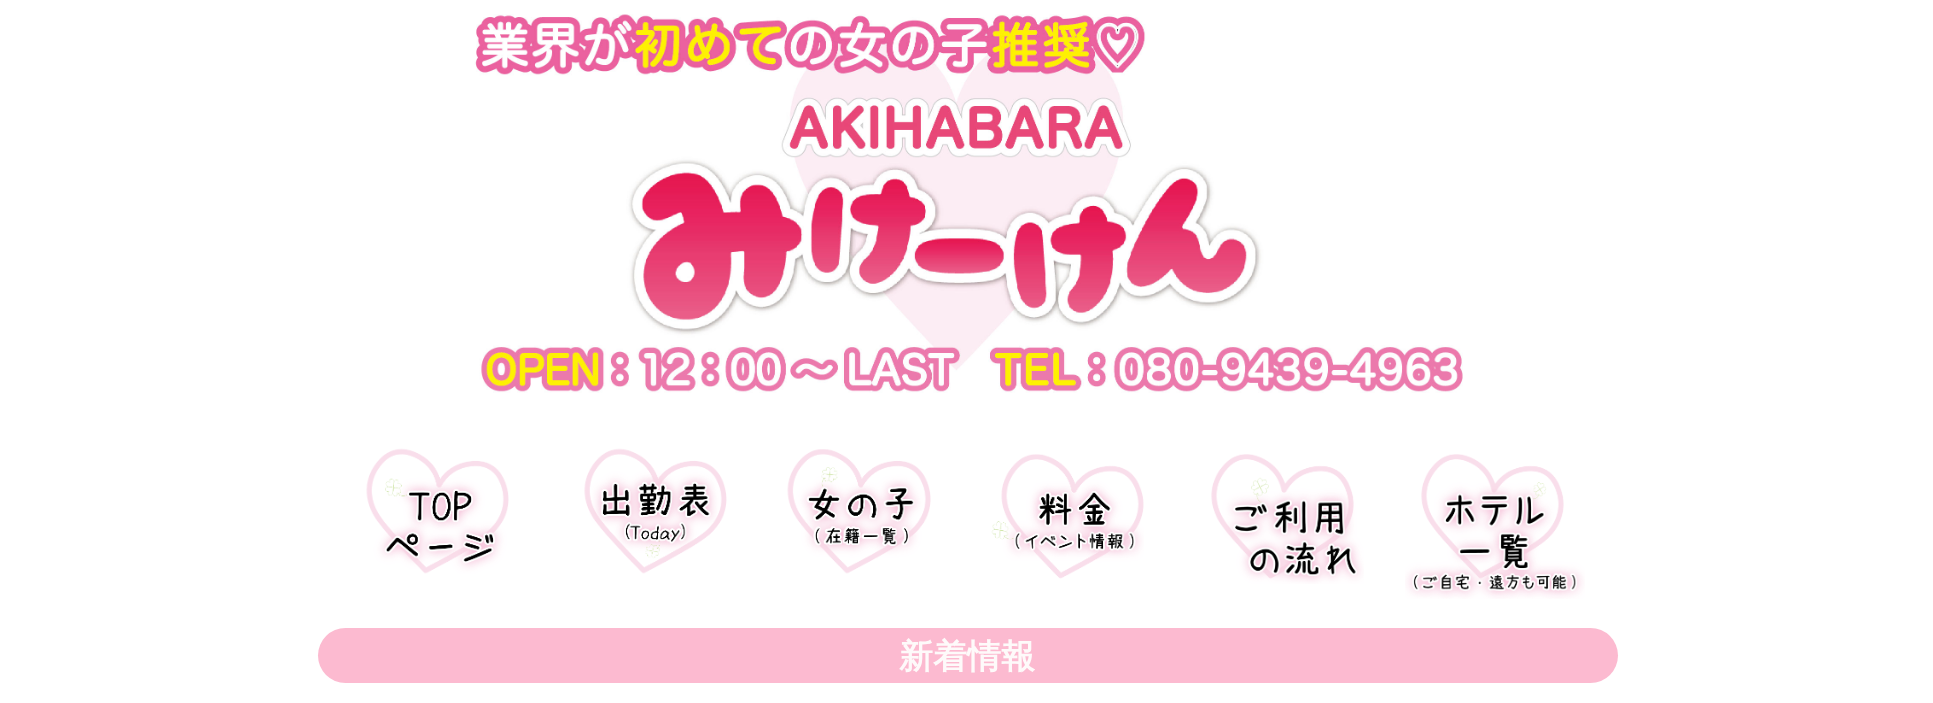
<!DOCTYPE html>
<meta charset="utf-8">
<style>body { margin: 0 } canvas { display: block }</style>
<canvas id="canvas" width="1933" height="703"></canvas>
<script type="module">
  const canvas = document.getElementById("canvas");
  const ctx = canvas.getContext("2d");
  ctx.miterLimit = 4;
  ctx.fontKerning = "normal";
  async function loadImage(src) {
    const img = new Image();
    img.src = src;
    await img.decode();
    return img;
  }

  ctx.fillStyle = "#ffffff";
  ctx.fillRect(0, 0, 1933, 703);
  ctx.drawImage(await loadImage("img1.png"), 474, 14, 989, 379);
  ctx.drawImage(await loadImage("img2.png"), 366, 448, 143, 126);
  ctx.drawImage(await loadImage("img3.png"), 584, 448, 143, 126);
  ctx.drawImage(await loadImage("img4.png"), 787, 449, 144, 125);
  ctx.drawImage(await loadImage("img5.png"), 991, 454, 153, 125);
  ctx.drawImage(await loadImage("img6.png"), 1211, 454, 153, 130);
  ctx.drawImage(await loadImage("img7.png"), 1405, 454, 180, 145);
  ctx.fillStyle = "#fcbad0";
  ctx.beginPath();
  ctx.roundRect(318, 628, 1300, 55, 27.5);
  ctx.fill();
  ctx.font = "bold 34px WenQuanYi Zen Hei";
  ctx.fillStyle = "#fefafa";
  ctx.fillText("新着情報", 899, 668);
</script>
